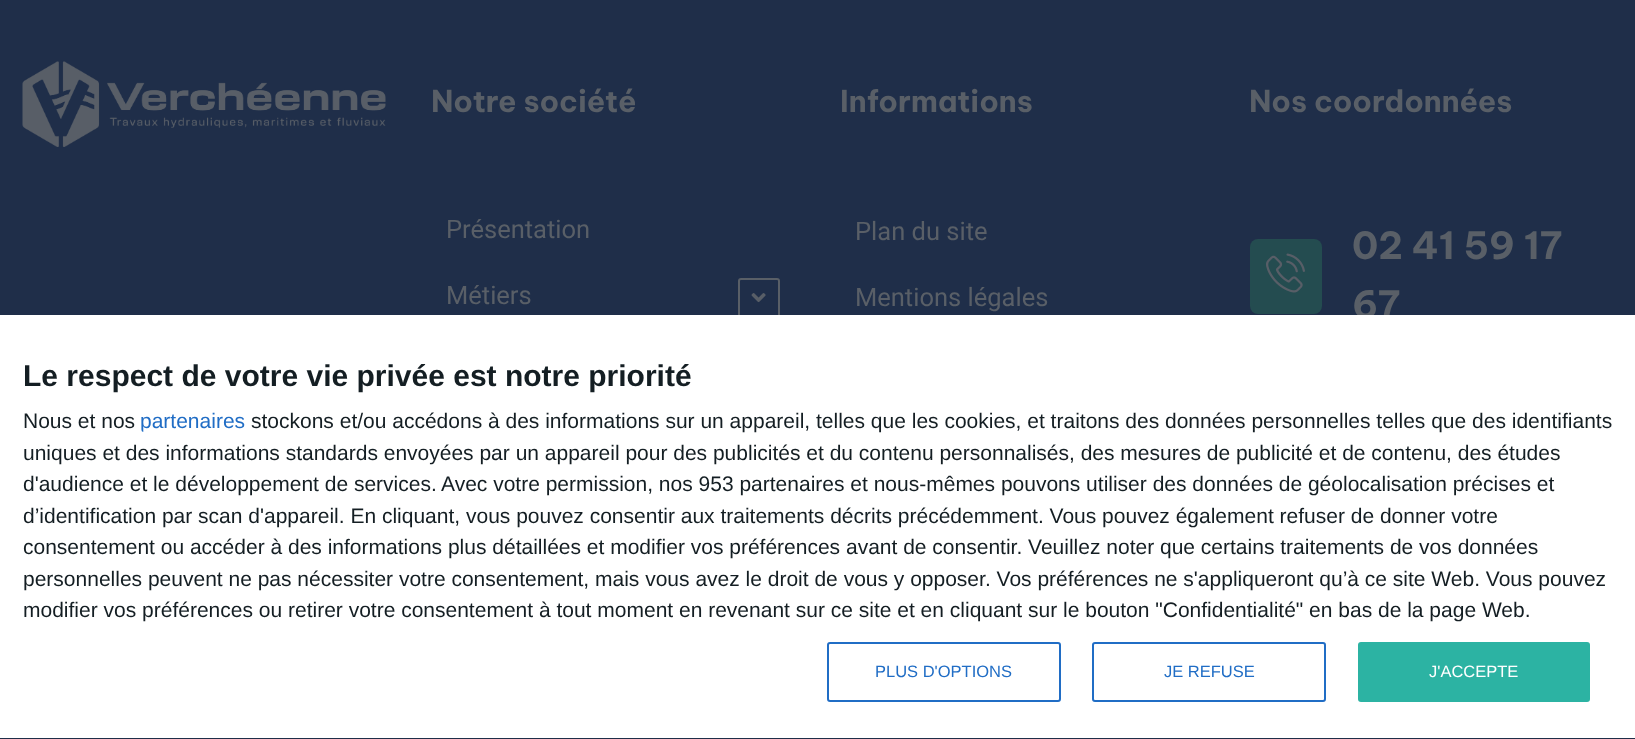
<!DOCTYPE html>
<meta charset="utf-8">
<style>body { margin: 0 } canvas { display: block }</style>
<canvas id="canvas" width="1635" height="739"></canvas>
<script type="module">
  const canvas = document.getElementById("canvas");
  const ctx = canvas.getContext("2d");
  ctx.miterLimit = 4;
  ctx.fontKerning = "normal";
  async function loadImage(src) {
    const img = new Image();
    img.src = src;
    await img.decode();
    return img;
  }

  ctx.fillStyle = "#1f2e49";
  ctx.fillRect(0, 0, 1635, 739);
  ctx.drawImage(await loadImage("img1.png"), 22, 61, 364, 86);
  ctx.font = "bold 30px Be Vietnam Pro";
  ctx.fillStyle = "#595f67";
  ctx.fillText("Notre société", 431, 112);
  ctx.font = "25.5px Roboto";
  ctx.fillText("Présentation", 446, 238);
  ctx.fillText("Métiers", 446, 304);
  ctx.beginPath();
  ctx.roundRect(739, 279, 40, 40, 2);
  ctx.strokeStyle = "#595f67";
  ctx.lineWidth = 2;
  ctx.stroke();
  ctx.drawImage(await loadImage("img2.png"), 751, 293, 15, 10);
  ctx.font = "bold 30px Be Vietnam Pro";
  ctx.fillText("Informations", 840, 112);
  ctx.font = "25.5px Roboto";
  ctx.fillText("Plan du site", 855, 240);
  ctx.fillText("Mentions légales", 855, 306);
  ctx.font = "bold 30px Be Vietnam Pro";
  ctx.fillText("Nos coordonnées", 1249, 112);
  ctx.fillStyle = "#244c50";
  ctx.beginPath();
  ctx.roundRect(1250, 239, 72, 75, 8);
  ctx.fill();
  ctx.drawImage(await loadImage("img3.png"), 1266, 253, 39, 40);
  ctx.font = "bold 37.5px Be Vietnam Pro";
  ctx.fillStyle = "#595f67";
  ctx.fillText("02 41 59 17", 1352, 259);
  ctx.fillText("67", 1352, 318);
  ctx.fillStyle = "#ffffff";
  ctx.fillRect(0, 315, 1635, 423);
  ctx.font = "bold 30px Liberation Sans";
  ctx.fillStyle = "#141e23";
  ctx.fillText("Le respect de votre vie privée est notre priorité", 23, 386);
  ctx.font = "21px Liberation Sans";
  ctx.fillText("Nous et nos", 23, 428);
  ctx.save();
  ctx.beginPath();
  ctx.roundRect(141, 411, 105, 21, 3);
  ctx.clip();
  ctx.fillStyle = "#206dc5";
  ctx.fillText("partenaires", 140, 428);
  ctx.restore();
  ctx.fillText("stockons et/ou accédons à des informations sur un appareil, telles que les cookies, et traitons des données personnelles telles que des identifiants", 251, 428);
  ctx.fillText("uniques et des informations standards envoyées par un appareil pour des publicités et du contenu personnalisés, des mesures de publicité et de contenu, des études", 23, 460);
  ctx.fillText("d'audience et le développement de services.", 23, 491);
  ctx.fillText("Avec votre permission, nos 953 partenaires et nous-mêmes pouvons utiliser des données de géolocalisation précises et", 441, 491);
  ctx.fillText("d’identification par scan d'appareil. En cliquant, vous pouvez consentir aux traitements décrits précédemment. Vous pouvez également refuser de donner votre", 23, 523);
  ctx.fillText("consentement ou accéder à des informations plus détaillées et modifier vos préférences avant de consentir. Veuillez noter que certains traitements de vos données", 23, 554);
  ctx.fillText("personnelles peuvent ne pas nécessiter votre consentement, mais vous avez le droit de vous y opposer. Vos préférences ne s'appliqueront qu’à ce site Web. Vous pouvez", 23, 586);
  ctx.fillText("modifier vos préférences ou retirer votre consentement à tout moment en revenant sur ce site et en cliquant sur le bouton \"Confidentialité\" en bas de la page Web.", 23, 617);
  ctx.beginPath();
  ctx.roundRect(828, 643, 232, 58, 2);
  ctx.strokeStyle = "#206dc5";
  ctx.stroke();
  ctx.font = "16.5px Liberation Sans";
  ctx.fillStyle = "#206dc5";
  ctx.fillText("PLUS D'OPTIONS", 875, 677);
  ctx.beginPath();
  ctx.roundRect(1093, 643, 232, 58, 2);
  ctx.stroke();
  ctx.fillText("JE REFUSE", 1164, 677);
  ctx.fillStyle = "#2cb3a3";
  ctx.beginPath();
  ctx.roundRect(1358, 642, 232, 60, 3);
  ctx.fill();
  ctx.fillStyle = "#ffffff";
  ctx.fillText("J'ACCEPTE", 1429, 677);
</script>
